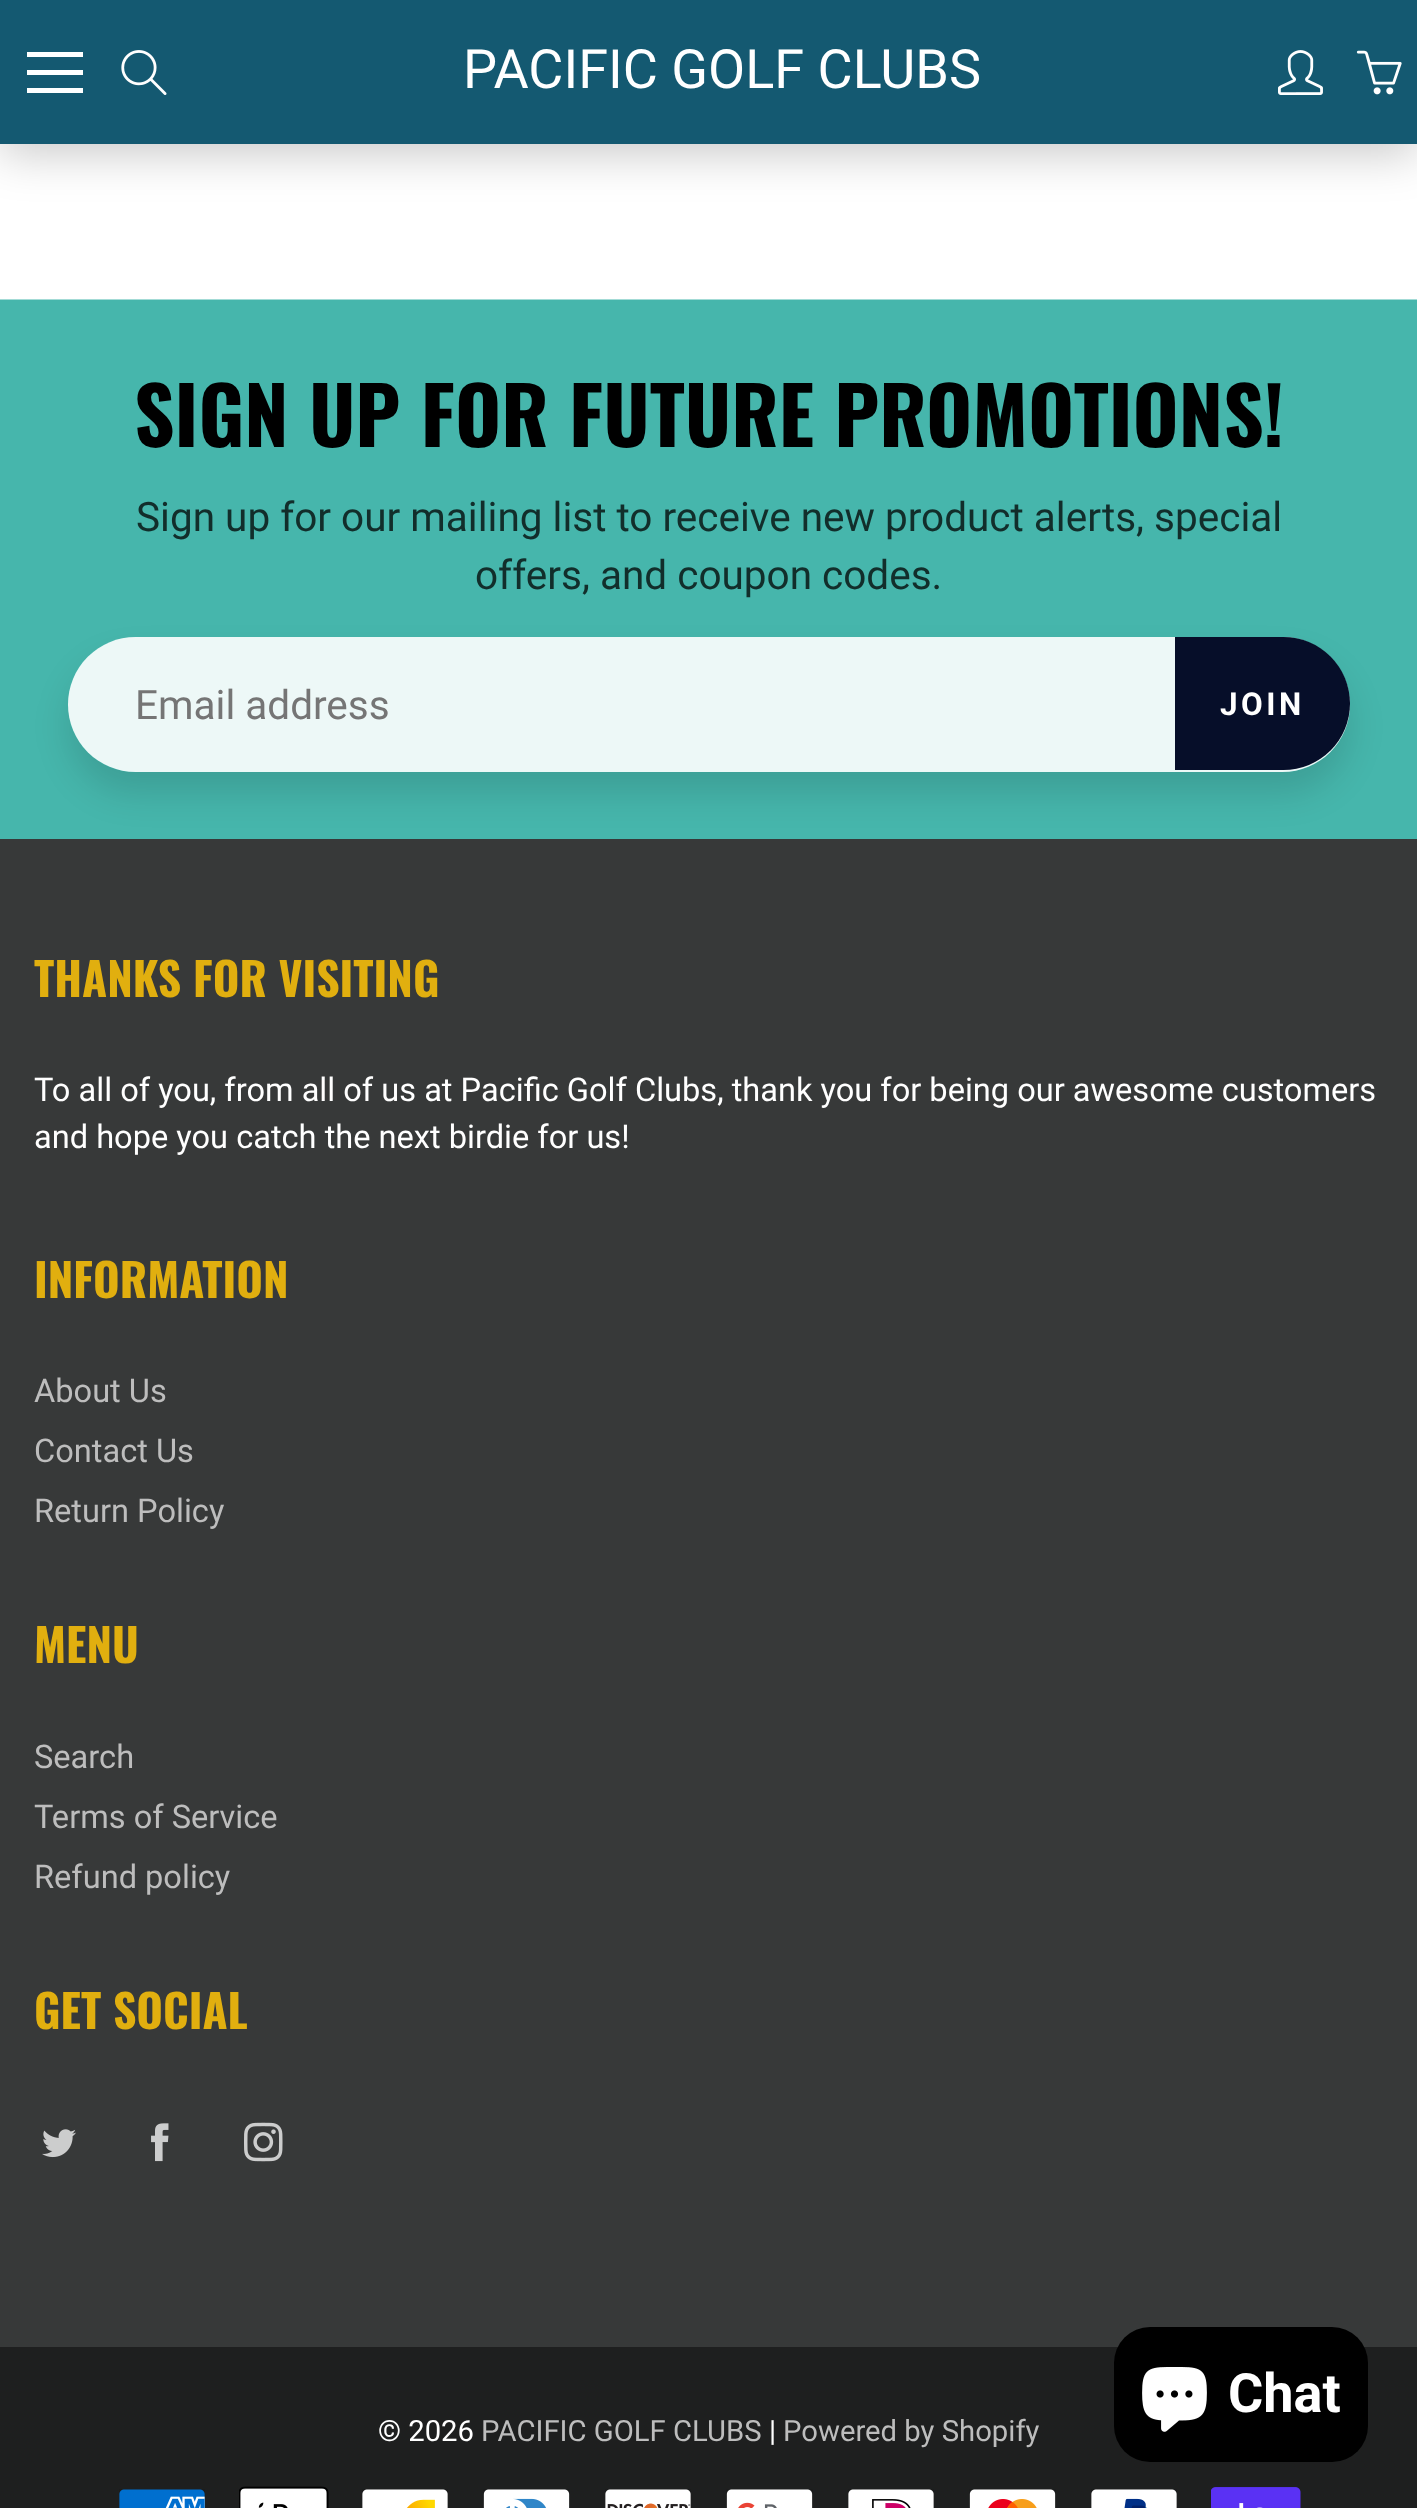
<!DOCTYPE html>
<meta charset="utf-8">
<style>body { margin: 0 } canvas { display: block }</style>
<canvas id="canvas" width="1417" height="2508"></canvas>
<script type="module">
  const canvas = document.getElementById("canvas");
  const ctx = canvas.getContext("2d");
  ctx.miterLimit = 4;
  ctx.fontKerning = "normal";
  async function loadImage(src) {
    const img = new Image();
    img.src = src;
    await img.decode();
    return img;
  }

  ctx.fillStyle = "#373939";
  ctx.fillRect(0, 0, 1417, 2508);
  ctx.fillStyle = "#46b6ac";
  ctx.fillRect(0, 299, 1417, 540);
  ctx.drawImage(await loadImage("img4.png"), 0, 144, 1417, 156);
  ctx.fillStyle = "rgba(0, 0, 0, 0.2)";
  ctx.filter = "blur(22.5px)";
  ctx.beginPath();
  ctx.rect(0, 11, 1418, 144);
  ctx.fill();
  ctx.filter = "none";
  ctx.fillStyle = "#145971";
  ctx.fillRect(0, 0, 1417, 144);
  ctx.fillStyle = "#ffffff";
  ctx.fillRect(27, 70, 56, 5);
  ctx.fillRect(27, 52, 56, 5);
  ctx.fillRect(27, 88, 56, 5);
  ctx.drawImage(await loadImage("img1.png"), 121, 50, 46, 45);
  ctx.font = "54px Roboto";
  ctx.fillText("PACIFIC GOLF CLUBS", 463, 88);
  ctx.drawImage(await loadImage("img2.png"), 1278, 50, 45, 45);
  ctx.drawImage(await loadImage("img3.png"), 1356, 50, 46, 45);
  ctx.font = "bold 79px Oswald";
  ctx.fillStyle = "#000000";
  ctx.fillText("SIGN UP FOR FUTURE PROMOTIONS!", 134, 447);
  ctx.font = "40.5px Roboto";
  ctx.fillStyle = "#122e2b";
  ctx.fillText("Sign up for our mailing list to receive new product alerts, special", 136, 531);
  ctx.fillText("offers, and coupon codes.", 475, 589);
  ctx.save();
  ctx.beginPath();
  ctx.moveTo(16, 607);
  ctx.lineTo(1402, 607);
  ctx.lineTo(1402, 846);
  ctx.lineTo(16, 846);
  ctx.closePath();
  ctx.moveTo(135.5, 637);
  ctx.lineTo(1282.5, 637);
  ctx.bezierCurveTo(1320, 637, 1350, 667, 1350, 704.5);
  ctx.bezierCurveTo(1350, 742, 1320, 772, 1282.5, 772);
  ctx.lineTo(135.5, 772);
  ctx.bezierCurveTo(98, 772, 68, 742, 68, 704.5);
  ctx.bezierCurveTo(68, 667, 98, 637, 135.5, 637);
  ctx.closePath();
  ctx.clip("evenodd");
  ctx.fillStyle = "rgba(0, 0, 0, 0.12)";
  ctx.filter = "blur(17px)";
  ctx.beginPath();
  ctx.roundRect(68, 659, 1282, 135, 67.5);
  ctx.fill();
  ctx.filter = "none";
  ctx.restore();
  ctx.fillStyle = "rgba(255, 255, 255, 0.9)";
  ctx.beginPath();
  ctx.roundRect(68, 637, 1282, 135, 67.5);
  ctx.fill();
  ctx.fillStyle = "#757575";
  ctx.fillText("Email address", 135, 719);
  ctx.fillStyle = "#060e29";
  ctx.beginPath();
  ctx.roundRect(1175, 637, 175, 133, [0, 66.5, 66.5, 0]);
  ctx.fill();
  ctx.letterSpacing = "3.5px";
  ctx.font = "bold 31.5px Roboto";
  ctx.fillStyle = "#ffffff";
  ctx.fillText("JOIN", 1220, 715);
  ctx.letterSpacing = "0px";
  ctx.font = "bold 45.6px Oswald";
  ctx.fillStyle = "#e1af0f";
  ctx.fillText("THANKS FOR VISITING", 34, 997);
  ctx.font = "32.6px Roboto";
  ctx.fillStyle = "#ffffff";
  ctx.fillText("To all of you, from all of us at Pacific Golf Clubs, thank you for being our awesome customers", 34, 1101);
  ctx.fillText("and hope you catch the next birdie for us!", 34, 1148);
  ctx.font = "bold 45.6px Oswald";
  ctx.fillStyle = "#e1af0f";
  ctx.fillText("INFORMATION", 34, 1298);
  ctx.font = "32.6px Roboto";
  ctx.fillStyle = "#bdbdbd";
  ctx.fillText("About Us", 34, 1402);
  ctx.fillText("Contact Us", 34, 1462);
  ctx.fillText("Return Policy", 34, 1522);
  ctx.font = "bold 45.6px Oswald";
  ctx.fillStyle = "#e1af0f";
  ctx.fillText("MENU", 34, 1663);
  ctx.font = "32.6px Roboto";
  ctx.fillStyle = "#bdbdbd";
  ctx.fillText("Search", 34, 1768);
  ctx.fillText("Terms of Service", 34, 1828);
  ctx.fillText("Refund policy", 34, 1888);
  ctx.font = "bold 45.6px Oswald";
  ctx.fillStyle = "#e1af0f";
  ctx.fillText("GET SOCIAL", 34, 2029);
  ctx.drawImage(await loadImage("img5.png"), 42, 2129, 34, 29);
  ctx.drawImage(await loadImage("img6.png"), 151, 2123, 18, 39);
  ctx.drawImage(await loadImage("img7.png"), 244, 2122, 39, 40);
  ctx.fillStyle = "#1e1f1f";
  ctx.fillRect(0, 2347, 1417, 161);
  ctx.font = "29.25px Roboto";
  ctx.fillStyle = "#ffffff";
  ctx.fillText("© 2026", 378, 2441);
  ctx.fillStyle = "#bdbdbd";
  ctx.fillText("PACIFIC GOLF CLUBS", 481, 2441);
  ctx.fillStyle = "#ffffff";
  ctx.fillText("|", 769, 2441);
  ctx.fillStyle = "#bdbdbd";
  ctx.fillText("Powered by Shopify", 783, 2441);
  ctx.drawImage(await loadImage("img8.png"), 119, 2489, 86, 19);
  ctx.drawImage(await loadImage("img9.png"), 239, 2486, 90, 22);
  ctx.drawImage(await loadImage("img10.png"), 362, 2489, 86, 19);
  ctx.drawImage(await loadImage("img11.png"), 483, 2489, 87, 19);
  ctx.drawImage(await loadImage("img12.png"), 605, 2489, 86, 19);
  ctx.drawImage(await loadImage("img13.png"), 726, 2489, 87, 19);
  ctx.drawImage(await loadImage("img14.png"), 848, 2489, 86, 19);
  ctx.drawImage(await loadImage("img15.png"), 969, 2489, 87, 19);
  ctx.drawImage(await loadImage("img16.png"), 1091, 2489, 86, 19);
  ctx.drawImage(await loadImage("img17.png"), 1211, 2487, 90, 21);
  ctx.fillStyle = "#000000";
  ctx.beginPath();
  ctx.roundRect(1114, 2327, 254, 135, 36);
  ctx.fill();
  ctx.drawImage(await loadImage("img18.png"), 1142, 2367, 65, 65);
  ctx.font = "bold 54px Roboto";
  ctx.fillStyle = "#ffffff";
  ctx.fillText("Chat", 1228, 2412);
</script>
